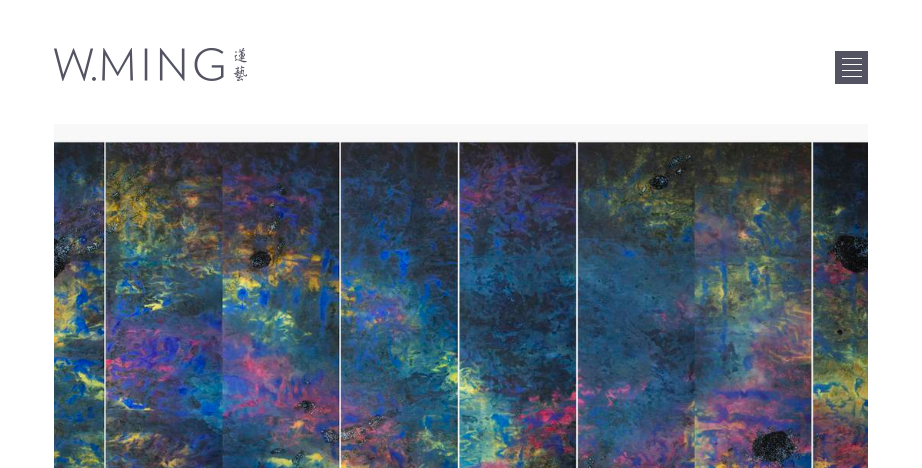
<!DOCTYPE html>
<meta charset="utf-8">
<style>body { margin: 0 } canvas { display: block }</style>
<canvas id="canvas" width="922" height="468"></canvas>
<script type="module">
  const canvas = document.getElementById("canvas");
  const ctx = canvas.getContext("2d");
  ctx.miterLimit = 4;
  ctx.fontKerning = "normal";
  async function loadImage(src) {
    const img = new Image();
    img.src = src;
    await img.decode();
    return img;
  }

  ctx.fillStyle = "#ffffff";
  ctx.fillRect(0, 0, 922, 468);
  ctx.drawImage(await loadImage("img1.png"), 54, 48, 193, 33);
  ctx.drawImage(await loadImage("img2.png"), 835, 51, 33, 33);
  ctx.drawImage(await loadImage("img3.png"), 54, 124, 814, 344);
</script>
